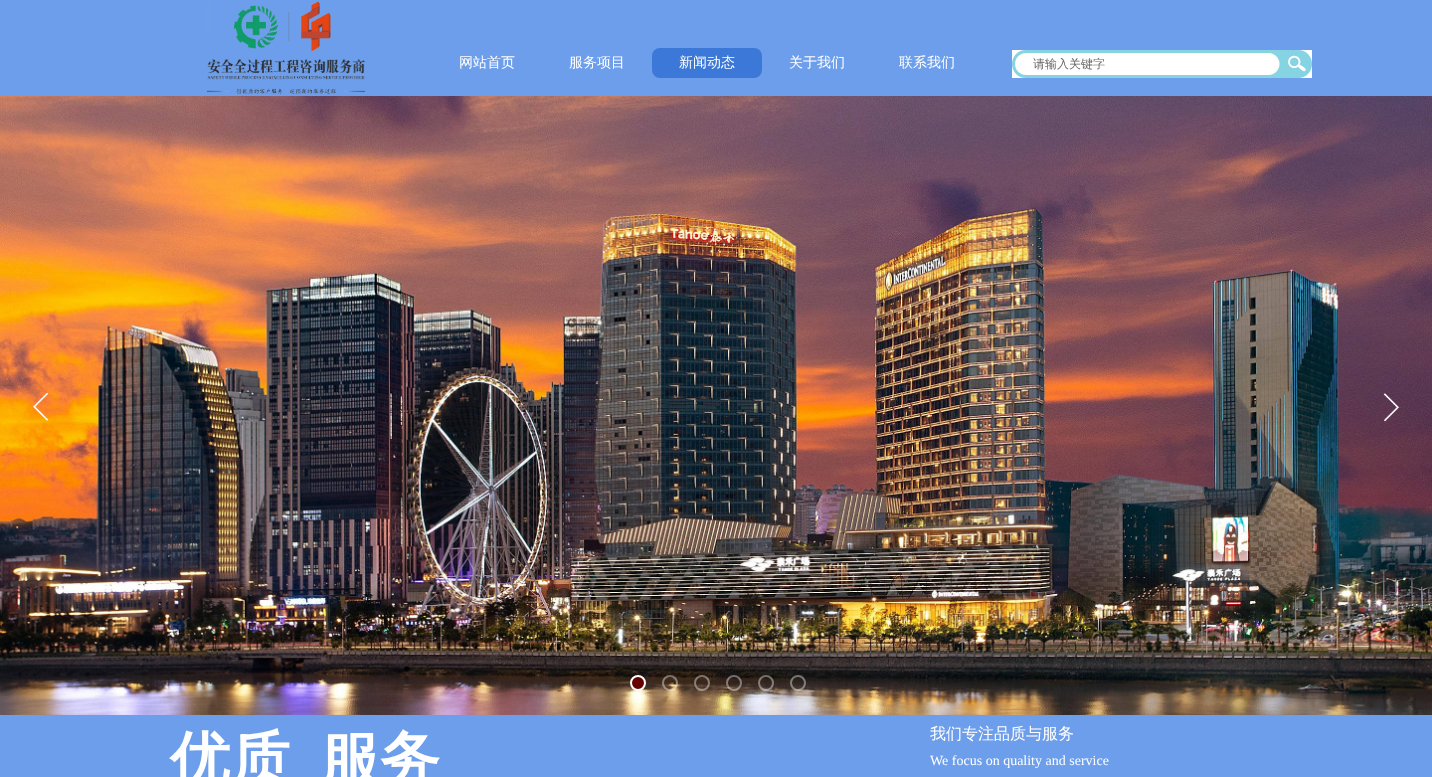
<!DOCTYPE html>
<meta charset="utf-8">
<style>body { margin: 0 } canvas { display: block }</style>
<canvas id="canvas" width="1432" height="777"></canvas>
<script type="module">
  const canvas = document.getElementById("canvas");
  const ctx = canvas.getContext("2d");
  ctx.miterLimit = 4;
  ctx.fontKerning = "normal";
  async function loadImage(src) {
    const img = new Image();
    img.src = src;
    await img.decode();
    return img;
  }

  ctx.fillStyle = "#ffffff";
  ctx.fillRect(0, 0, 1432, 777);
  ctx.fillStyle = "#6d9eeb";
  ctx.fillRect(0, 0, 1432, 96);
  ctx.drawImage(await loadImage("img1.png"), 207, 1, 158, 93);
  ctx.font = "500 14px WenQuanYi Zen Hei";
  ctx.fillStyle = "#ffffff";
  ctx.fillText("网站首页", 459, 67);
  ctx.fillText("服务项目", 569, 67);
  ctx.fillStyle = "#3c78d8";
  ctx.beginPath();
  ctx.roundRect(652, 48, 110, 30, 8);
  ctx.fill();
  ctx.fillStyle = "#ffffff";
  ctx.fillText("新闻动态", 679, 67);
  ctx.fillText("关于我们", 789, 67);
  ctx.fillText("联系我们", 899, 67);
  ctx.drawImage(await loadImage("img2.png"), 1012, 50, 300, 28);
  ctx.fillRect(1268, 55, 2, 18);
  ctx.font = "500 12px WenQuanYi Zen Hei";
  ctx.fillStyle = "#666666";
  ctx.fillText("请输入关键字", 1033, 68);
  ctx.drawImage(await loadImage("img3.png"), 0, 96, 1432, 619);
  ctx.drawImage(await loadImage("img4.png"), 32, 392, 17, 29);
  ctx.drawImage(await loadImage("img5.png"), 1383, 393, 17, 29);
  ctx.fillStyle = "#660000";
  ctx.beginPath();
  ctx.arc(638, 683, 7, 0, Math.PI * 2);
  ctx.fill();
  ctx.strokeStyle = "#ffffff";
  ctx.lineWidth = 2;
  ctx.stroke();
  ctx.beginPath();
  ctx.arc(670, 683, 7, 0, Math.PI * 2);
  ctx.strokeStyle = "rgba(255, 255, 255, 0.4)";
  ctx.stroke();
  ctx.beginPath();
  ctx.arc(702, 683, 7, 0, Math.PI * 2);
  ctx.stroke();
  ctx.beginPath();
  ctx.arc(734, 683, 7, 0, Math.PI * 2);
  ctx.stroke();
  ctx.beginPath();
  ctx.arc(766, 683, 7, 0, Math.PI * 2);
  ctx.stroke();
  ctx.beginPath();
  ctx.arc(798, 683, 7, 0, Math.PI * 2);
  ctx.stroke();
  ctx.fillStyle = "#6d9eeb";
  ctx.fillRect(0, 715, 1432, 62);
  ctx.font = "bold 60px WenQuanYi Zen Hei";
  ctx.fillStyle = "#ffffff";
  ctx.fillText("优质", 170, 780);
  ctx.fillText("服务", 320, 780);
  ctx.font = "500 16px WenQuanYi Zen Hei";
  ctx.fillText("我们专注品质与服务", 930, 739);
  ctx.font = "14px Liberation Serif";
  ctx.fillText("We focus on quality and service", 930, 765);
</script>
